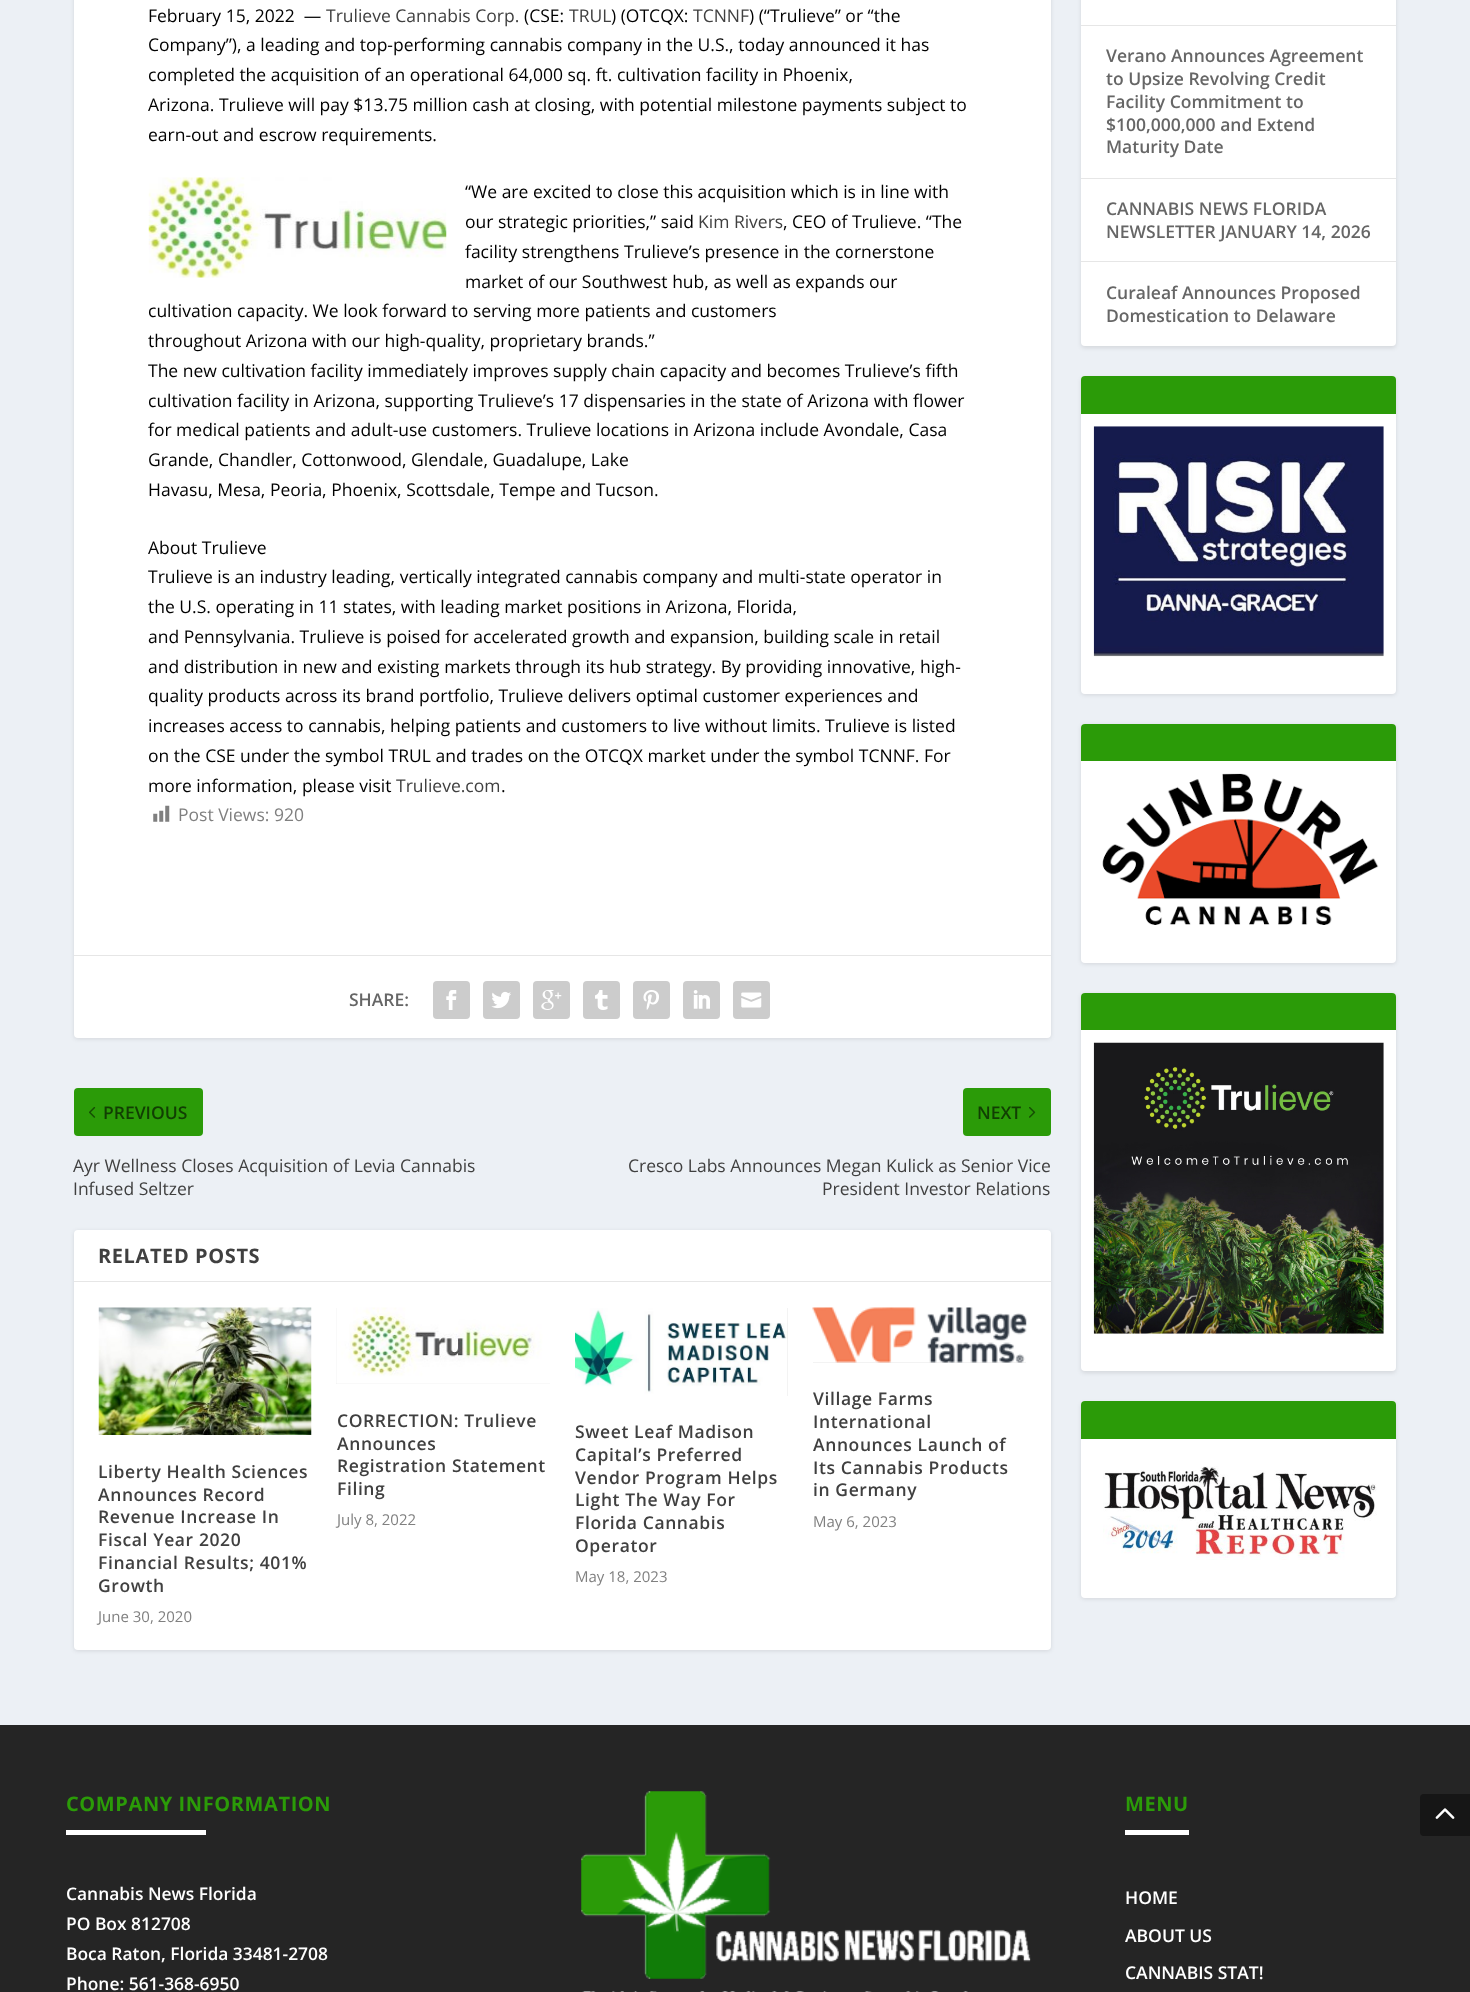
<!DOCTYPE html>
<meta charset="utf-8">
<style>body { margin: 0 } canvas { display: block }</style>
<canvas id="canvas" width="1470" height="1992"></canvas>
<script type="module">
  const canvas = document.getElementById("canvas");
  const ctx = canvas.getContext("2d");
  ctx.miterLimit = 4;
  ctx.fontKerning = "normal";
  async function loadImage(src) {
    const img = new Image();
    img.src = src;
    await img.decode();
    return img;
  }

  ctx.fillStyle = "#ecf0f5";
  ctx.fillRect(0, 0, 1470, 1992);
  ctx.fillStyle = "rgba(0, 0, 0, 0.1)";
  ctx.filter = "blur(2px)";
  ctx.beginPath();
  ctx.roundRect(74, -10, 977, 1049, 4);
  ctx.fill();
  ctx.filter = "none";
  ctx.fillStyle = "#ffffff";
  ctx.beginPath();
  ctx.roundRect(74, -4, 977, 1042, 4);
  ctx.fill();
  ctx.font = "17.5px Open Sans";
  ctx.fillStyle = "#000000";
  ctx.fillText("February 15, 2022  —", 148, 22);
  ctx.fillStyle = "#404040";
  ctx.fillText("Trulieve Cannabis Corp.", 326, 22);
  ctx.fillStyle = "#000000";
  ctx.fillText("(CSE:", 524, 22);
  ctx.fillStyle = "#404040";
  ctx.fillText("TRUL", 569, 22);
  ctx.fillStyle = "#000000";
  ctx.fillText(") (OTCQX:", 611, 22);
  ctx.fillStyle = "#404040";
  ctx.fillText("TCNNF", 693, 22);
  ctx.fillStyle = "#000000";
  ctx.fillText(") (“Trulieve” or “the", 749, 22);
  ctx.fillText("Company”), a leading and top-performing cannabis company in the U.S., today announced it has", 148, 51);
  ctx.fillText("completed the acquisition of an operational 64,000 sq. ft. cultivation facility in Phoenix,", 148, 81);
  ctx.fillText("Arizona. Trulieve will pay $13.75 million cash at closing, with potential milestone payments subject to", 148, 111);
  ctx.fillText("earn-out and escrow requirements.", 148, 141);
  ctx.drawImage(await loadImage("img1.png"), 148, 177, 299, 101);
  ctx.fillText("“We are excited to close this acquisition which is in line with", 465, 198);
  ctx.fillText("our strategic priorities,” said", 465, 228);
  ctx.fillStyle = "#404040";
  ctx.fillText("Kim Rivers", 698, 228);
  ctx.fillStyle = "#000000";
  ctx.fillText(", CEO of Trulieve. “The", 783, 228);
  ctx.fillText("facility strengthens Trulieve’s presence in the cornerstone", 465, 258);
  ctx.fillText("market of our Southwest hub, as well as expands our", 465, 288);
  ctx.fillText("cultivation capacity. We look forward to serving more patients and customers", 148, 317);
  ctx.fillText("throughout Arizona with our high-quality, proprietary brands.”", 148, 347);
  ctx.fillText("The new cultivation facility immediately improves supply chain capacity and becomes Trulieve’s fifth", 148, 377);
  ctx.fillText("cultivation facility in Arizona, supporting Trulieve’s 17 dispensaries in the state of Arizona with flower", 148, 407);
  ctx.fillText("for medical patients and adult-use customers. Trulieve locations in Arizona include Avondale, Casa", 148, 436);
  ctx.fillText("Grande, Chandler, Cottonwood, Glendale, Guadalupe, Lake", 148, 466);
  ctx.fillText("Havasu, Mesa, Peoria, Phoenix, Scottsdale, Tempe and Tucson.", 148, 496);
  ctx.fillText("About Trulieve", 148, 554);
  ctx.fillText("Trulieve is an industry leading, vertically integrated cannabis company and multi-state operator in", 148, 583);
  ctx.fillText("the U.S. operating in 11 states, with leading market positions in Arizona, Florida,", 148, 613);
  ctx.fillText("and Pennsylvania. Trulieve is poised for accelerated growth and expansion, building scale in retail", 148, 643);
  ctx.fillText("and distribution in new and existing markets through its hub strategy. By providing innovative, high-", 148, 673);
  ctx.fillText("quality products across its brand portfolio, Trulieve delivers optimal customer experiences and", 148, 702);
  ctx.fillText("increases access to cannabis, helping patients and customers to live without limits. Trulieve is listed", 148, 732);
  ctx.fillText("on the CSE under the symbol TRUL and trades on the OTCQX market under the symbol TCNNF. For", 148, 762);
  ctx.fillText("more information, please visit", 148, 792);
  ctx.fillStyle = "#404040";
  ctx.fillText("Trulieve.com", 396, 792);
  ctx.fillStyle = "#000000";
  ctx.fillText(".", 501, 792);
  ctx.drawImage(await loadImage("img2.png"), 153, 805, 17, 17);
  ctx.fillStyle = "#808080";
  ctx.fillText("Post Views: 920", 178, 821);
  ctx.fillStyle = "#e6e6e6";
  ctx.fillRect(74, 955, 977, 1);
  ctx.font = "600 17.5px Open Sans";
  ctx.fillStyle = "#666666";
  ctx.fillText("SHARE:", 349, 1006);
  ctx.fillStyle = "#cccccc";
  ctx.beginPath();
  ctx.roundRect(433, 981, 37, 38, 4);
  ctx.fill();
  ctx.drawImage(await loadImage("img3.png"), 446, 990, 11, 20);
  ctx.beginPath();
  ctx.roundRect(483, 981, 37, 38, 4);
  ctx.fill();
  ctx.drawImage(await loadImage("img4.png"), 491, 991, 20, 18);
  ctx.beginPath();
  ctx.roundRect(533, 981, 37, 38, 4);
  ctx.fill();
  ctx.drawImage(await loadImage("img5.png"), 541, 990, 21, 20);
  ctx.beginPath();
  ctx.roundRect(583, 981, 37, 38, 4);
  ctx.fill();
  ctx.drawImage(await loadImage("img6.png"), 595, 990, 13, 20);
  ctx.beginPath();
  ctx.roundRect(633, 981, 37, 38, 4);
  ctx.fill();
  ctx.drawImage(await loadImage("img7.png"), 643, 990, 16, 20);
  ctx.beginPath();
  ctx.roundRect(683, 981, 37, 38, 4);
  ctx.fill();
  ctx.drawImage(await loadImage("img8.png"), 693, 990, 17, 19);
  ctx.beginPath();
  ctx.roundRect(733, 981, 37, 38, 4);
  ctx.fill();
  ctx.drawImage(await loadImage("img9.png"), 741, 992, 21, 16);
  ctx.fillStyle = "#2b9b08";
  ctx.beginPath();
  ctx.roundRect(74, 1088, 129, 48, 4);
  ctx.fill();
  ctx.drawImage(await loadImage("img10.png"), 89, 1107, 7, 11);
  ctx.fillStyle = "#113e03";
  ctx.fillText("PREVIOUS", 103, 1119);
  ctx.font = "17.5px Open Sans";
  ctx.fillStyle = "#404040";
  ctx.fillText("Ayr Wellness Closes Acquisition of Levia Cannabis", 73, 1172);
  ctx.fillText("Infused Seltzer", 73, 1195);
  ctx.fillStyle = "#2b9b08";
  ctx.beginPath();
  ctx.roundRect(963, 1088, 88, 48, 4);
  ctx.fill();
  ctx.font = "600 17.5px Open Sans";
  ctx.fillStyle = "#113e03";
  ctx.fillText("NEXT", 977, 1119);
  ctx.drawImage(await loadImage("img11.png"), 1029, 1107, 7, 11);
  ctx.font = "17.5px Open Sans";
  ctx.fillStyle = "#404040";
  ctx.fillText("Cresco Labs Announces Megan Kulick as Senior Vice", 628, 1172);
  ctx.fillText("President Investor Relations", 822, 1195);
  ctx.fillStyle = "rgba(0, 0, 0, 0.1)";
  ctx.filter = "blur(2px)";
  ctx.beginPath();
  ctx.roundRect(74, 1231, 977, 420, 4);
  ctx.fill();
  ctx.filter = "none";
  ctx.fillStyle = "#ffffff";
  ctx.beginPath();
  ctx.roundRect(74, 1230, 977, 420, 4);
  ctx.fill();
  ctx.fillStyle = "#e6e6e6";
  ctx.fillRect(74, 1281, 977, 1);
  ctx.letterSpacing = "0.6px";
  ctx.font = "bold 20px Open Sans";
  ctx.fillStyle = "#404040";
  ctx.fillText("RELATED POSTS", 98, 1263);
  ctx.drawImage(await loadImage("img12.png"), 98, 1307, 214, 128);
  ctx.font = "600 17.5px Open Sans";
  ctx.fillText("Liberty Health Sciences", 98, 1478);
  ctx.fillText("Announces Record", 98, 1501);
  ctx.fillText("Revenue Increase In", 98, 1523);
  ctx.fillText("Fiscal Year 2020", 98, 1546);
  ctx.fillText("Financial Results; 401%", 98, 1569);
  ctx.fillText("Growth", 98, 1592);
  ctx.letterSpacing = "0px";
  ctx.font = "15px Open Sans";
  ctx.fillStyle = "#808080";
  ctx.fillText("June 30, 2020", 98, 1622);
  ctx.fillStyle = "#e6e6e6";
  ctx.fillRect(336, 1308, 214, 76);
  ctx.drawImage(await loadImage("img13.png"), 336, 1307, 214, 77);
  ctx.letterSpacing = "0.6px";
  ctx.font = "600 17.5px Open Sans";
  ctx.fillStyle = "#404040";
  ctx.fillText("CORRECTION: Trulieve", 337, 1427);
  ctx.fillText("Announces", 337, 1450);
  ctx.fillText("Registration Statement", 337, 1472);
  ctx.fillText("Filing", 337, 1495);
  ctx.letterSpacing = "0px";
  ctx.font = "15px Open Sans";
  ctx.fillStyle = "#808080";
  ctx.fillText("July 8, 2022", 337, 1525);
  ctx.fillStyle = "#e6e6e6";
  ctx.fillRect(787, 1308, 1, 88);
  ctx.drawImage(await loadImage("img14.png"), 575, 1308, 213, 88);
  ctx.letterSpacing = "0.6px";
  ctx.font = "600 17.5px Open Sans";
  ctx.fillStyle = "#404040";
  ctx.fillText("Sweet Leaf Madison", 575, 1438);
  ctx.fillText("Capital’s Preferred", 575, 1461);
  ctx.fillText("Vendor Program Helps", 575, 1484);
  ctx.fillText("Light The Way For", 575, 1506);
  ctx.fillText("Florida Cannabis", 575, 1529);
  ctx.fillText("Operator", 575, 1552);
  ctx.letterSpacing = "0px";
  ctx.font = "15px Open Sans";
  ctx.fillStyle = "#808080";
  ctx.fillText("May 18, 2023", 575, 1582);
  ctx.fillStyle = "#e6e6e6";
  ctx.fillRect(813, 1362, 213, 1);
  ctx.drawImage(await loadImage("img15.png"), 812, 1307, 215, 56);
  ctx.letterSpacing = "0.6px";
  ctx.font = "600 17.5px Open Sans";
  ctx.fillStyle = "#404040";
  ctx.fillText("Village Farms", 813, 1405);
  ctx.fillText("International", 813, 1428);
  ctx.fillText("Announces Launch of", 813, 1451);
  ctx.fillText("Its Cannabis Products", 813, 1474);
  ctx.fillText("in Germany", 813, 1496);
  ctx.letterSpacing = "0px";
  ctx.font = "15px Open Sans";
  ctx.fillStyle = "#808080";
  ctx.fillText("May 6, 2023", 813, 1527);
  ctx.fillStyle = "rgba(0, 0, 0, 0.1)";
  ctx.filter = "blur(2px)";
  ctx.beginPath();
  ctx.roundRect(1081, -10, 315, 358, 4);
  ctx.fill();
  ctx.filter = "none";
  ctx.fillStyle = "#ffffff";
  ctx.beginPath();
  ctx.roundRect(1081, -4, 315, 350, 4);
  ctx.fill();
  ctx.fillStyle = "#e6e6e6";
  ctx.fillRect(1081, 25, 315, 1);
  ctx.fillRect(1081, 178, 315, 1);
  ctx.font = "600 17.5px Open Sans";
  ctx.fillStyle = "#666666";
  ctx.fillText("Verano Announces Agreement", 1106, 62);
  ctx.fillText("to Upsize Revolving Credit", 1106, 85);
  ctx.fillText("Facility Commitment to", 1106, 108);
  ctx.fillText("$100,000,000 and Extend", 1106, 131);
  ctx.fillText("Maturity Date", 1106, 153);
  ctx.fillStyle = "#e6e6e6";
  ctx.fillRect(1081, 261, 315, 1);
  ctx.fillStyle = "#666666";
  ctx.fillText("CANNABIS NEWS FLORIDA", 1106, 215);
  ctx.fillText("NEWSLETTER JANUARY 14, 2026", 1106, 238);
  ctx.fillText("Curaleaf Announces Proposed", 1106, 299);
  ctx.fillText("Domestication to Delaware", 1106, 322);
  ctx.fillStyle = "rgba(0, 0, 0, 0.1)";
  ctx.filter = "blur(2px)";
  ctx.beginPath();
  ctx.roundRect(1081, 378, 315, 317, 4);
  ctx.fill();
  ctx.filter = "none";
  ctx.fillStyle = "#ffffff";
  ctx.beginPath();
  ctx.roundRect(1081, 376, 315, 318, 4);
  ctx.fill();
  ctx.fillStyle = "#2b9b08";
  ctx.beginPath();
  ctx.roundRect(1081, 376, 315, 38, [4, 4, 0, 0]);
  ctx.fill();
  ctx.drawImage(await loadImage("img16.png"), 1093, 426, 291, 231);
  ctx.fillStyle = "rgba(0, 0, 0, 0.1)";
  ctx.filter = "blur(2px)";
  ctx.beginPath();
  ctx.roundRect(1081, 725, 315, 239, 4);
  ctx.fill();
  ctx.filter = "none";
  ctx.fillStyle = "#ffffff";
  ctx.beginPath();
  ctx.roundRect(1081, 724, 315, 239, 4);
  ctx.fill();
  ctx.fillStyle = "#2b9b08";
  ctx.beginPath();
  ctx.roundRect(1081, 724, 315, 37, [4, 4, 0, 0]);
  ctx.fill();
  ctx.drawImage(await loadImage("img17.png"), 1102, 773, 277, 152);
  ctx.fillStyle = "rgba(0, 0, 0, 0.1)";
  ctx.filter = "blur(2px)";
  ctx.beginPath();
  ctx.roundRect(1081, 994, 315, 379, 4);
  ctx.fill();
  ctx.filter = "none";
  ctx.fillStyle = "#ffffff";
  ctx.beginPath();
  ctx.roundRect(1081, 993, 315, 378, 4);
  ctx.fill();
  ctx.fillStyle = "#2b9b08";
  ctx.beginPath();
  ctx.roundRect(1081, 993, 315, 37, [4, 4, 0, 0]);
  ctx.fill();
  ctx.drawImage(await loadImage("img18.png"), 1093, 1042, 291, 292);
  ctx.fillStyle = "rgba(0, 0, 0, 0.1)";
  ctx.filter = "blur(2px)";
  ctx.beginPath();
  ctx.roundRect(1081, 1403, 315, 196, 4);
  ctx.fill();
  ctx.filter = "none";
  ctx.fillStyle = "#ffffff";
  ctx.beginPath();
  ctx.roundRect(1081, 1401, 315, 197, 4);
  ctx.fill();
  ctx.fillStyle = "#2b9b08";
  ctx.beginPath();
  ctx.roundRect(1081, 1401, 315, 38, [4, 4, 0, 0]);
  ctx.fill();
  ctx.drawImage(await loadImage("img19.png"), 1103, 1466, 274, 94);
  ctx.fillStyle = "#252525";
  ctx.fillRect(0, 1725, 1470, 267);
  ctx.letterSpacing = "0.6px";
  ctx.font = "bold 20px Open Sans";
  ctx.fillStyle = "#2b9b08";
  ctx.fillText("COMPANY INFORMATION", 66, 1811);
  ctx.fillStyle = "#ffffff";
  ctx.fillRect(66, 1830, 140, 5);
  ctx.letterSpacing = "0px";
  ctx.font = "600 17.4px Open Sans";
  ctx.fillText("Cannabis News Florida", 66, 1900);
  ctx.fillText("PO Box 812708", 66, 1930);
  ctx.fillText("Boca Raton, Florida 33481-2708", 66, 1960);
  ctx.fillText("Phone: 561-368-6950", 66, 1990);
  ctx.drawImage(await loadImage("img20.png"), 581, 1791, 450, 201);
  ctx.letterSpacing = "0.6px";
  ctx.font = "bold 20px Open Sans";
  ctx.fillStyle = "#2b9b08";
  ctx.fillText("MENU", 1125, 1811);
  ctx.fillStyle = "#ffffff";
  ctx.fillRect(1125, 1830, 64, 5);
  ctx.letterSpacing = "0px";
  ctx.font = "600 17.5px Open Sans";
  ctx.fillText("HOME", 1125, 1904);
  ctx.fillText("ABOUT US", 1125, 1942);
  ctx.fillText("CANNABIS STAT!", 1125, 1979);
  ctx.fillStyle = "#161616";
  ctx.beginPath();
  ctx.roundRect(1420, 1794, 50, 42, [4, 0, 0, 4]);
  ctx.fill();
  ctx.drawImage(await loadImage("img21.png"), 1435, 1808, 20, 11);
</script>
